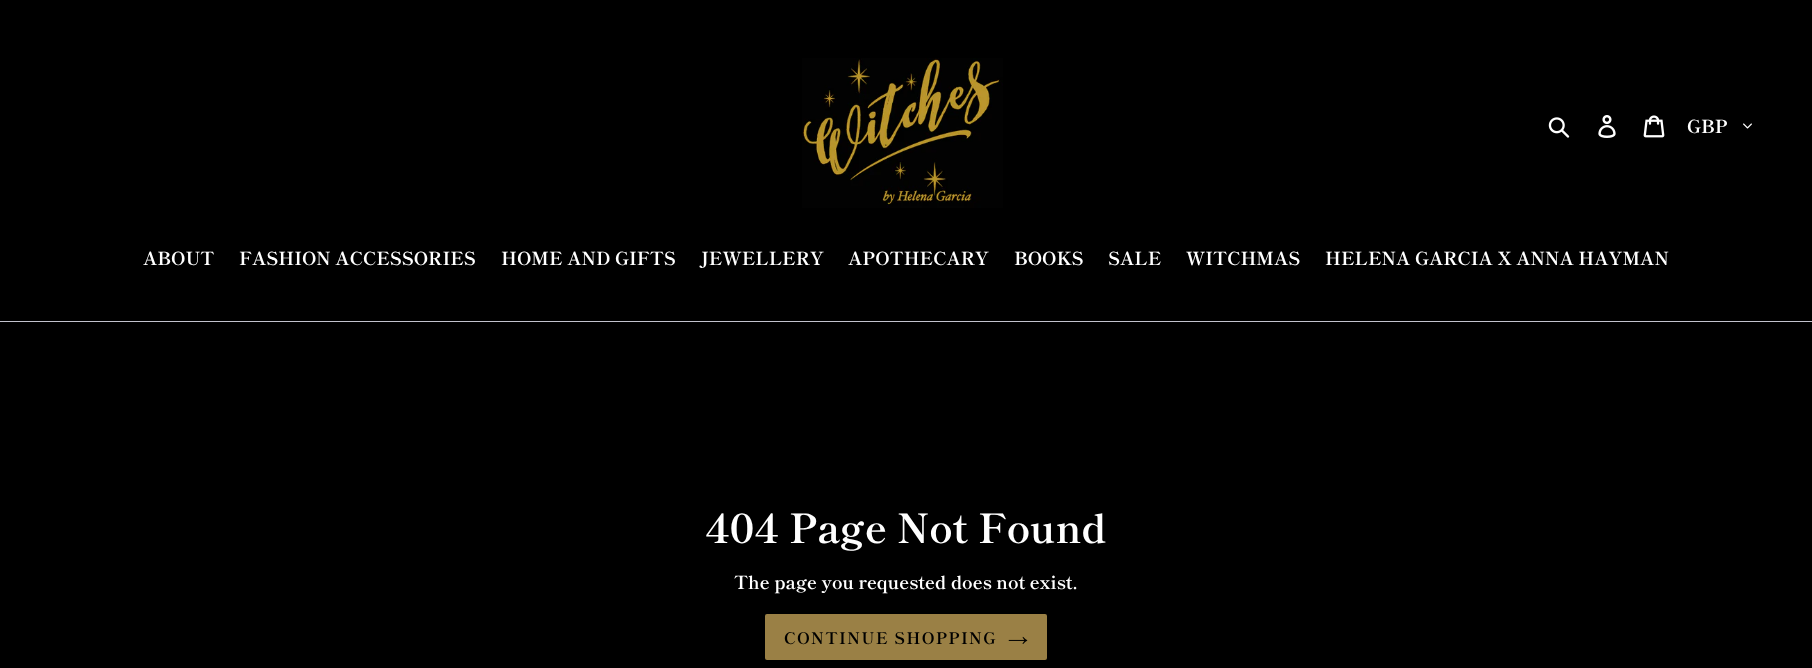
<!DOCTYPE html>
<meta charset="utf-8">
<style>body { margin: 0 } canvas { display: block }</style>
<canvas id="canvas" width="1812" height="668"></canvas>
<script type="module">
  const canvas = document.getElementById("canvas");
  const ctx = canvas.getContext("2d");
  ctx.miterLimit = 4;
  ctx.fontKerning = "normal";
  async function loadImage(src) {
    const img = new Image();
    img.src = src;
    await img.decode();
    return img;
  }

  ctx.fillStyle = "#000000";
  ctx.fillRect(0, 0, 1812, 668);
  ctx.drawImage(await loadImage("img1.png"), 802, 58, 201, 150);
  ctx.drawImage(await loadImage("img2.png"), 1548, 117, 22, 21);
  ctx.drawImage(await loadImage("img3.png"), 1598, 115, 18, 23);
  ctx.drawImage(await loadImage("img4.png"), 1643, 115, 22, 23);
  ctx.font = "bold 18px Shippori Mincho";
  ctx.fillStyle = "#ffffff";
  ctx.fillText("GBP", 1687, 133);
  ctx.drawImage(await loadImage("img5.png"), 1743, 123, 9, 6);
  ctx.fillStyle = "#c2c3cd";
  ctx.fillRect(0, 321, 1812, 1);
  ctx.fillStyle = "#ffffff";
  ctx.fillText("ABOUT", 143, 265);
  ctx.fillText("FASHION ACCESSORIES", 239, 265);
  ctx.fillText("HOME AND GIFTS", 501, 265);
  ctx.fillText("JEWELLERY", 700, 265);
  ctx.fillText("APOTHECARY", 848, 265);
  ctx.fillText("BOOKS", 1014, 265);
  ctx.fillText("SALE", 1108, 265);
  ctx.fillText("WITCHMAS", 1186, 265);
  ctx.fillText("HELENA GARCIA X ANNA HAYMAN", 1325, 265);
  ctx.font = "bold 40px Shippori Mincho";
  ctx.fillText("404 Page Not Found", 705, 543);
  ctx.font = "bold 18px Shippori Mincho";
  ctx.fillText("The page you requested does not exist.", 734, 589);
  ctx.fillStyle = "#9a8045";
  ctx.beginPath();
  ctx.roundRect(765, 614, 282, 46, 2);
  ctx.fill();
  ctx.letterSpacing = "1.25px";
  ctx.font = "bold 16px Shippori Mincho";
  ctx.fillStyle = "#000000";
  ctx.fillText("CONTINUE SHOPPING", 784, 644);
  ctx.drawImage(await loadImage("img6.png"), 1008, 636, 20, 8);
</script>
